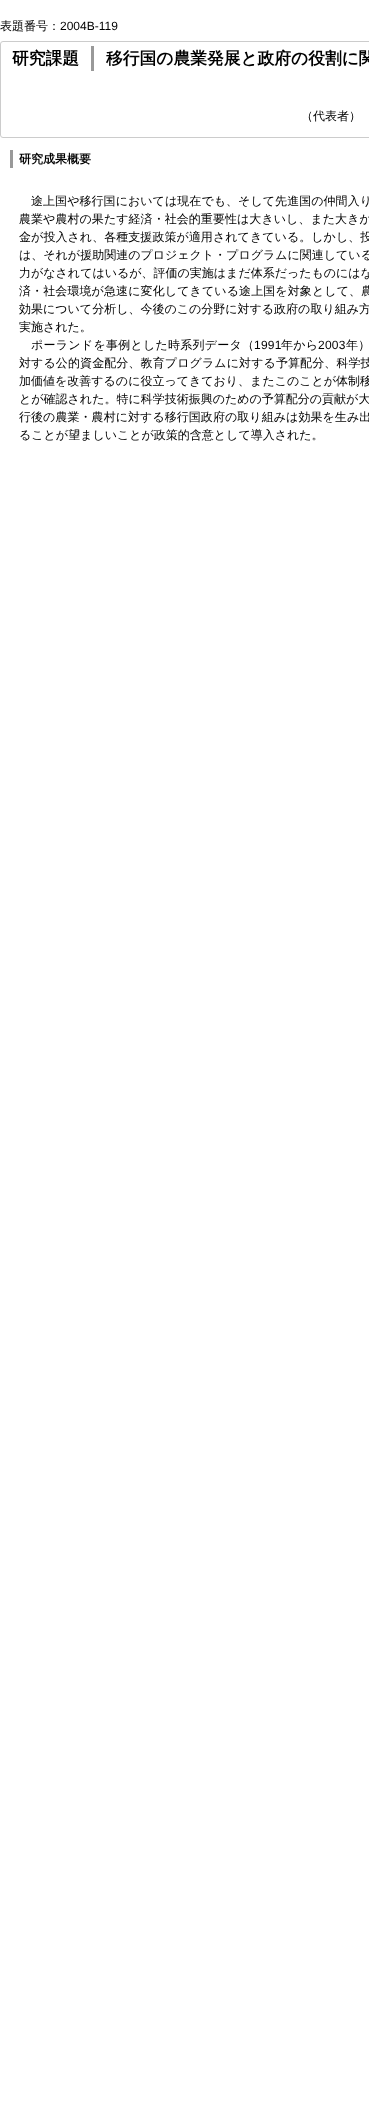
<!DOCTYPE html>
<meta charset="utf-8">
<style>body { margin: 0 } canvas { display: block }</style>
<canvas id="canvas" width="369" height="2113"></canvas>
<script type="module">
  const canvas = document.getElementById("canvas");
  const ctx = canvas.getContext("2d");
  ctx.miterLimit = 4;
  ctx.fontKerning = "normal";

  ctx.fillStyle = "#ffffff";
  ctx.fillRect(0, 0, 369, 2113);
  ctx.font = "500 12px WenQuanYi Zen Hei";
  ctx.fillStyle = "#000000";
  ctx.fillText("表題番号：", 0, 30);
  ctx.font = "12px Liberation Sans";
  ctx.fillText("2004B-119", 60, 30);
  ctx.beginPath();
  ctx.roundRect(0.5, 41.5, 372, 96, 2.5);
  ctx.strokeStyle = "#cccccc";
  ctx.stroke();
  ctx.font = "bold 16.75px WenQuanYi Zen Hei";
  ctx.fillText("研究課題", 12, 64);
  ctx.fillStyle = "#999999";
  ctx.fillRect(91, 46, 3, 25);
  ctx.fillStyle = "#000000";
  ctx.fillText("移行国の農業発展と政府の役割に関", 106, 64);
  ctx.font = "500 12px WenQuanYi Zen Hei";
  ctx.fillText("（代表者）", 301, 120);
  ctx.fillStyle = "#999999";
  ctx.fillRect(10, 150, 3, 18);
  ctx.font = "bold 12px WenQuanYi Zen Hei";
  ctx.fillStyle = "#000000";
  ctx.fillText("研究成果概要", 19, 163);
  ctx.letterSpacing = "0.05px";
  ctx.font = "500 12px WenQuanYi Zen Hei";
  ctx.fillText("途上国や移行国においては現在でも、そして先進国の仲間入り", 31, 205);
  ctx.fillText("農業や農村の果たす経済・社会的重要性は大きいし、また大きか", 19, 223);
  ctx.fillText("金が投入され、各種支援政策が適用されてきている。しかし、投", 19, 241);
  ctx.letterSpacing = "0px";
  ctx.fillText("は、それが援助関連のプロジェクト・プログラムに関連している", 19, 259);
  ctx.fillText("力がなされてはいるが、評価の実施はまだ体系だったものにはな", 19, 277);
  ctx.letterSpacing = "0.1px";
  ctx.fillText("済・社会環境が急速に変化してきている途上国を対象として、農", 19, 295);
  ctx.letterSpacing = "0px";
  ctx.fillText("効果について分析し、今後のこの分野に対する政府の取り組み方", 19, 313);
  ctx.fillText("実施された。", 19, 331);
  ctx.letterSpacing = "0.25px";
  ctx.fillText("ポーランドを事例とした時系列データ（", 31, 349);
  ctx.font = "12px Liberation Sans";
  ctx.fillText("1991", 254, 349);
  ctx.font = "500 12px WenQuanYi Zen Hei";
  ctx.fillText("年から", 281, 349);
  ctx.font = "12px Liberation Sans";
  ctx.fillText("2003", 318, 349);
  ctx.font = "500 12px WenQuanYi Zen Hei";
  ctx.fillText("年）", 346, 349);
  ctx.letterSpacing = "0.1px";
  ctx.fillText("対する公的資金配分、教育プログラムに対する予算配分、科学技", 19, 367);
  ctx.letterSpacing = "0px";
  ctx.fillText("加価値を改善するのに役立ってきており、またこのことが体制移", 19, 385);
  ctx.fillText("とが確認された。特に科学技術振興のための予算配分の貢献が大", 19, 403);
  ctx.letterSpacing = "0.05px";
  ctx.fillText("行後の農業・農村に対する移行国政府の取り組みは効果を生み出", 19, 421);
  ctx.letterSpacing = "0px";
  ctx.fillText("ることが望ましいことが政策的含意として導入された。", 19, 439);
</script>
